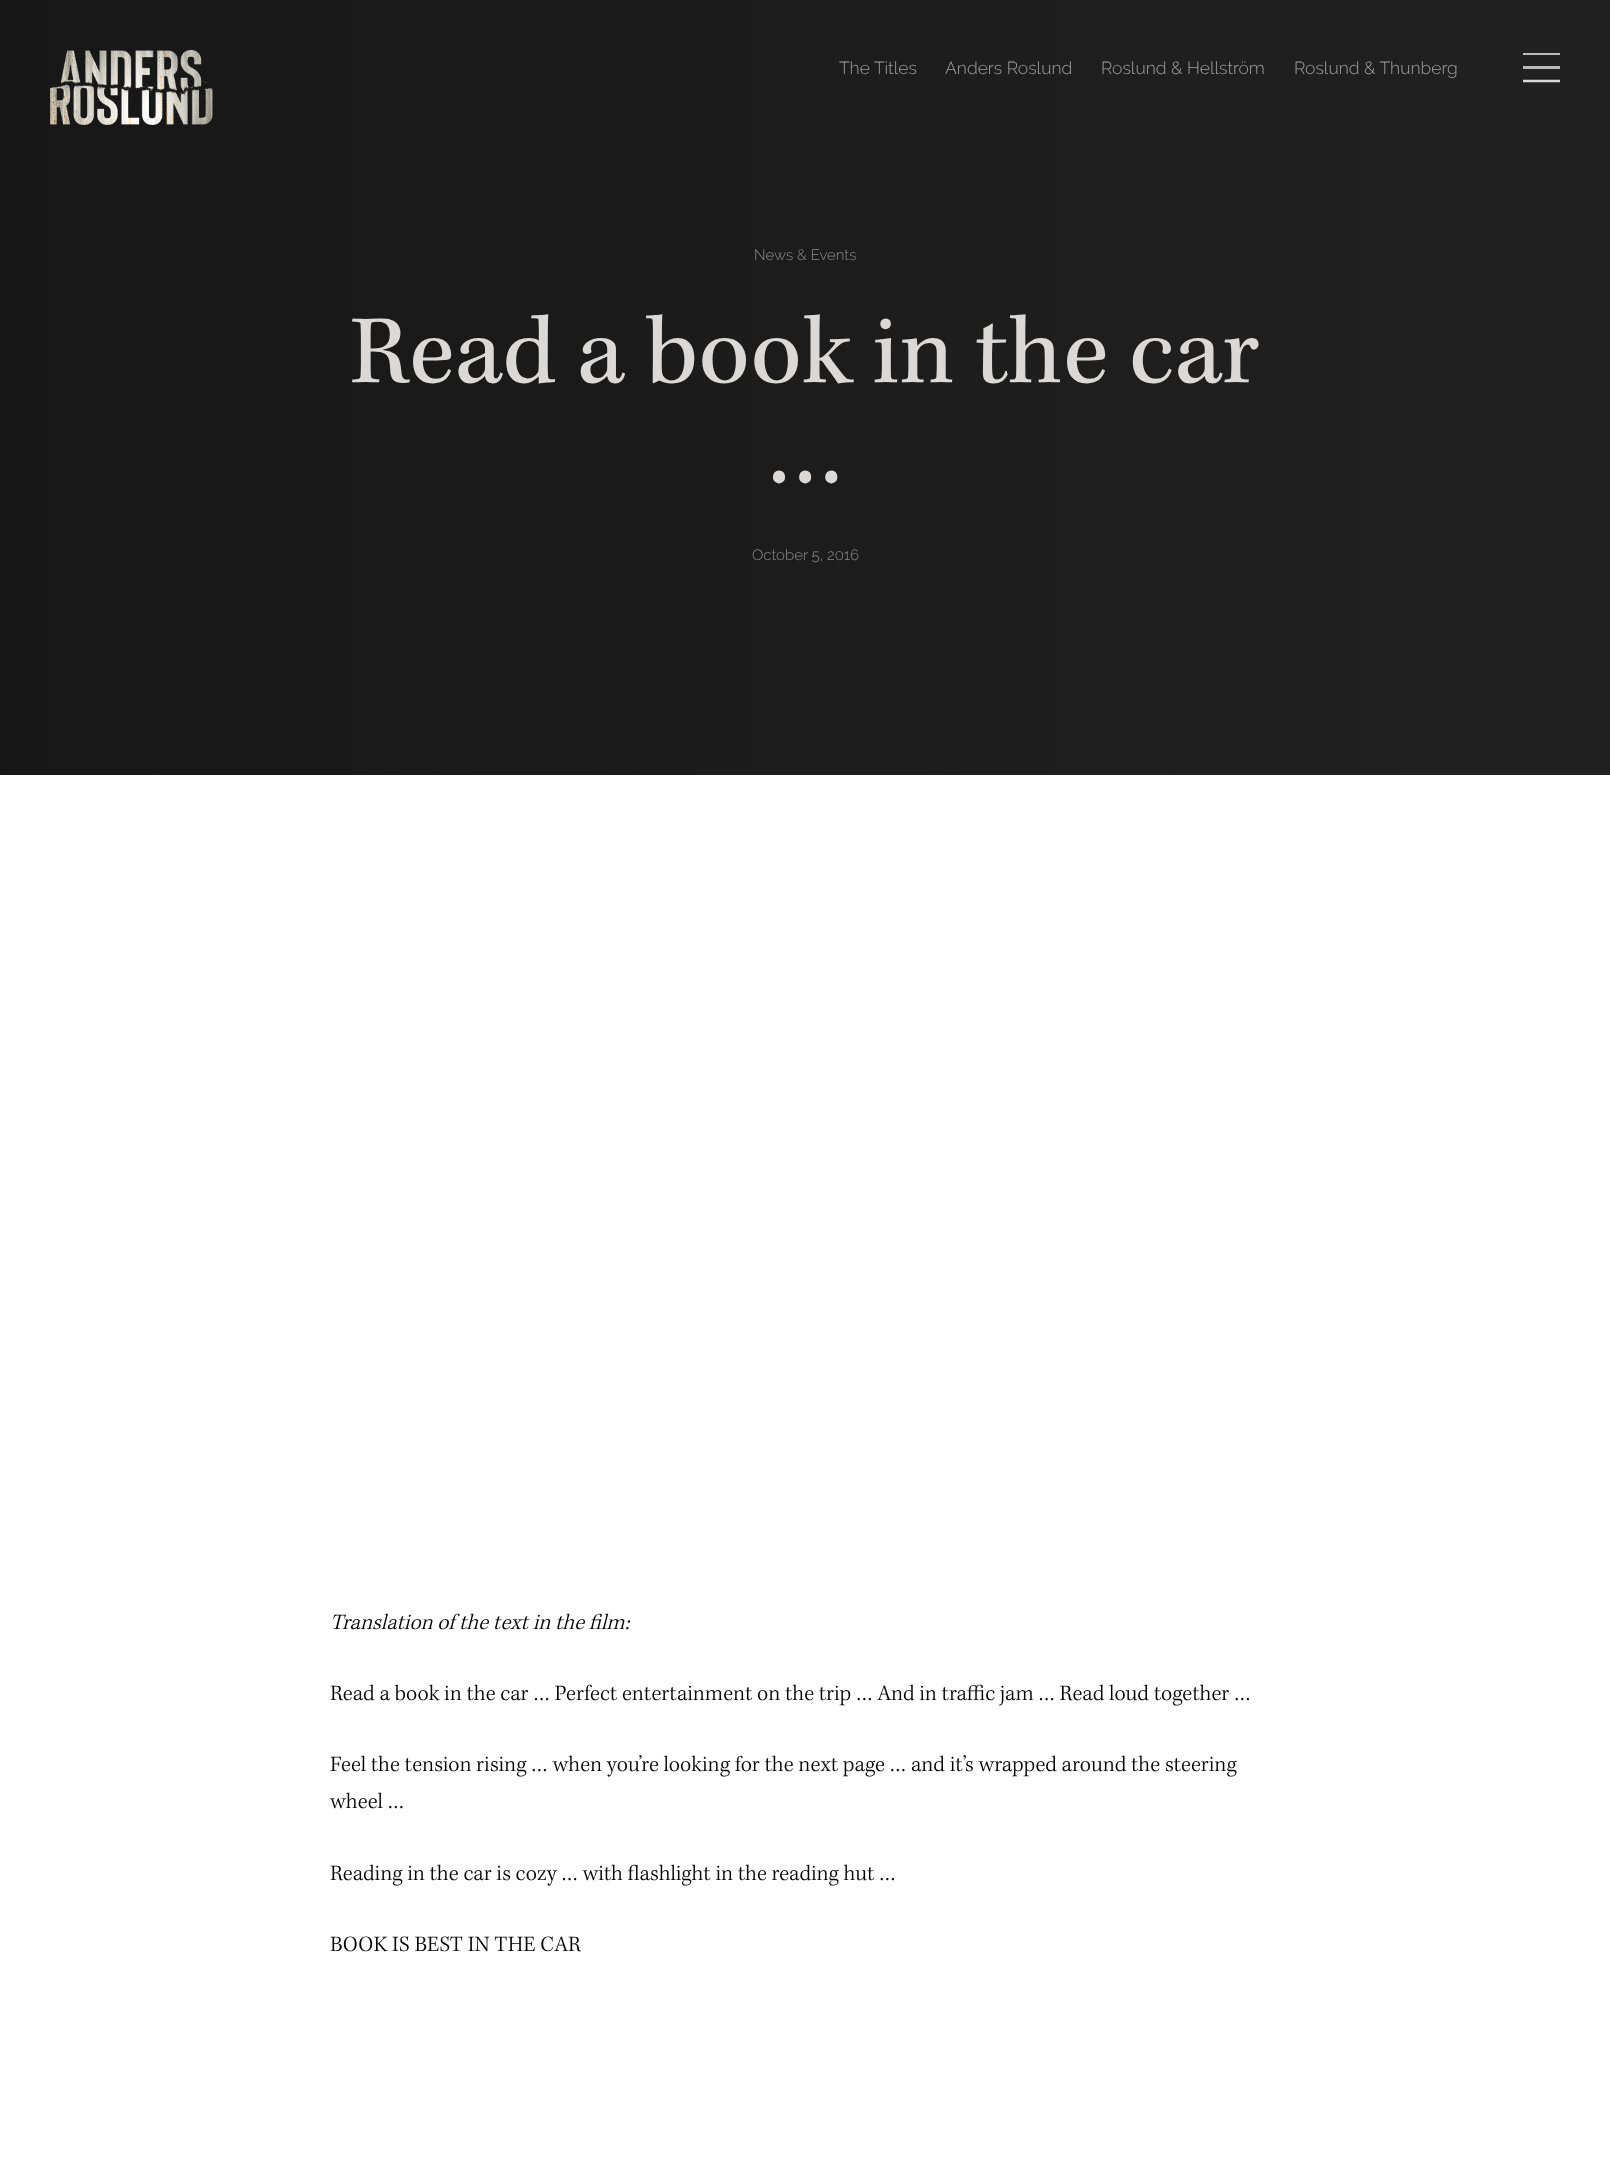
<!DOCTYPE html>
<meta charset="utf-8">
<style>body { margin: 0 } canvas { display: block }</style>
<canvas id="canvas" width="1610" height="2159"></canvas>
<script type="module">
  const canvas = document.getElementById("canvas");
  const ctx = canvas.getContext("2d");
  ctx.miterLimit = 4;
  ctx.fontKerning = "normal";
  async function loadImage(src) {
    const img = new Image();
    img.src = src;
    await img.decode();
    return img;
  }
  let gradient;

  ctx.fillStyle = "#ffffff";
  ctx.fillRect(0, 0, 1610, 2159);
  gradient = ctx.createLinearGradient(0, 0, 1610, 0);
  gradient.addColorStop(0, "#171717");
  gradient.addColorStop(1, "#212121");
  ctx.fillStyle = gradient;
  ctx.fillRect(0, 0, 1610, 775);
  ctx.drawImage(await loadImage("img1.png"), 50, 50, 163, 75);
  ctx.font = "300 17.5px Raleway";
  ctx.fillStyle = "#a1a09f";
  ctx.fillText("The Titles", 839, 74);
  ctx.fillText("Anders Roslund", 945, 74);
  ctx.fillText("Roslund & Hellström", 1101, 74);
  ctx.fillText("Roslund & Thunberg", 1294, 74);
  ctx.fillStyle = "#bbbab9";
  ctx.fillRect(1523, 53, 37, 2);
  ctx.fillRect(1523, 66, 37, 3);
  ctx.save();
  ctx.beginPath();
  ctx.rect(1523, 53, 37, 30);
  ctx.clip();
  ctx.beginPath();
  ctx.moveTo(1522.5, 81);
  ctx.lineTo(1560, 81);
  ctx.strokeStyle = "#dad9d7";
  ctx.lineWidth = 2.5;
  ctx.stroke();
  ctx.restore();
  ctx.font = "300 15px Raleway";
  ctx.fillStyle = "#8e8d8c";
  ctx.fillText("News & Events", 754, 260);
  ctx.font = "100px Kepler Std";
  ctx.fillStyle = "#dad9d7";
  ctx.fillText("Read a book in the car", 350, 382);
  ctx.fillText("…", 766, 482);
  ctx.font = "300 15px Raleway";
  ctx.fillStyle = "#8e8d8c";
  ctx.fillText("October 5, 2016", 752, 560);
  ctx.font = "italic 300 22.5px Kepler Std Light";
  ctx.fillStyle = "#020207";
  ctx.fillText("Translation of the text in the film:", 330, 1629);
  ctx.font = "300 22.5px Kepler Std Light";
  ctx.fillText("Read a book in the car … Perfect entertainment on the trip … And in traffic jam … Read loud together …", 330, 1700);
  ctx.fillText("Feel the tension rising … when you’re looking for the next page … and it’s wrapped around the steering", 330, 1771);
  ctx.fillText("wheel …", 330, 1808);
  ctx.fillText("Reading in the car is cozy … with flashlight in the reading hut …", 330, 1880);
  ctx.fillText("BOOK IS BEST IN THE CAR", 330, 1951);
</script>
